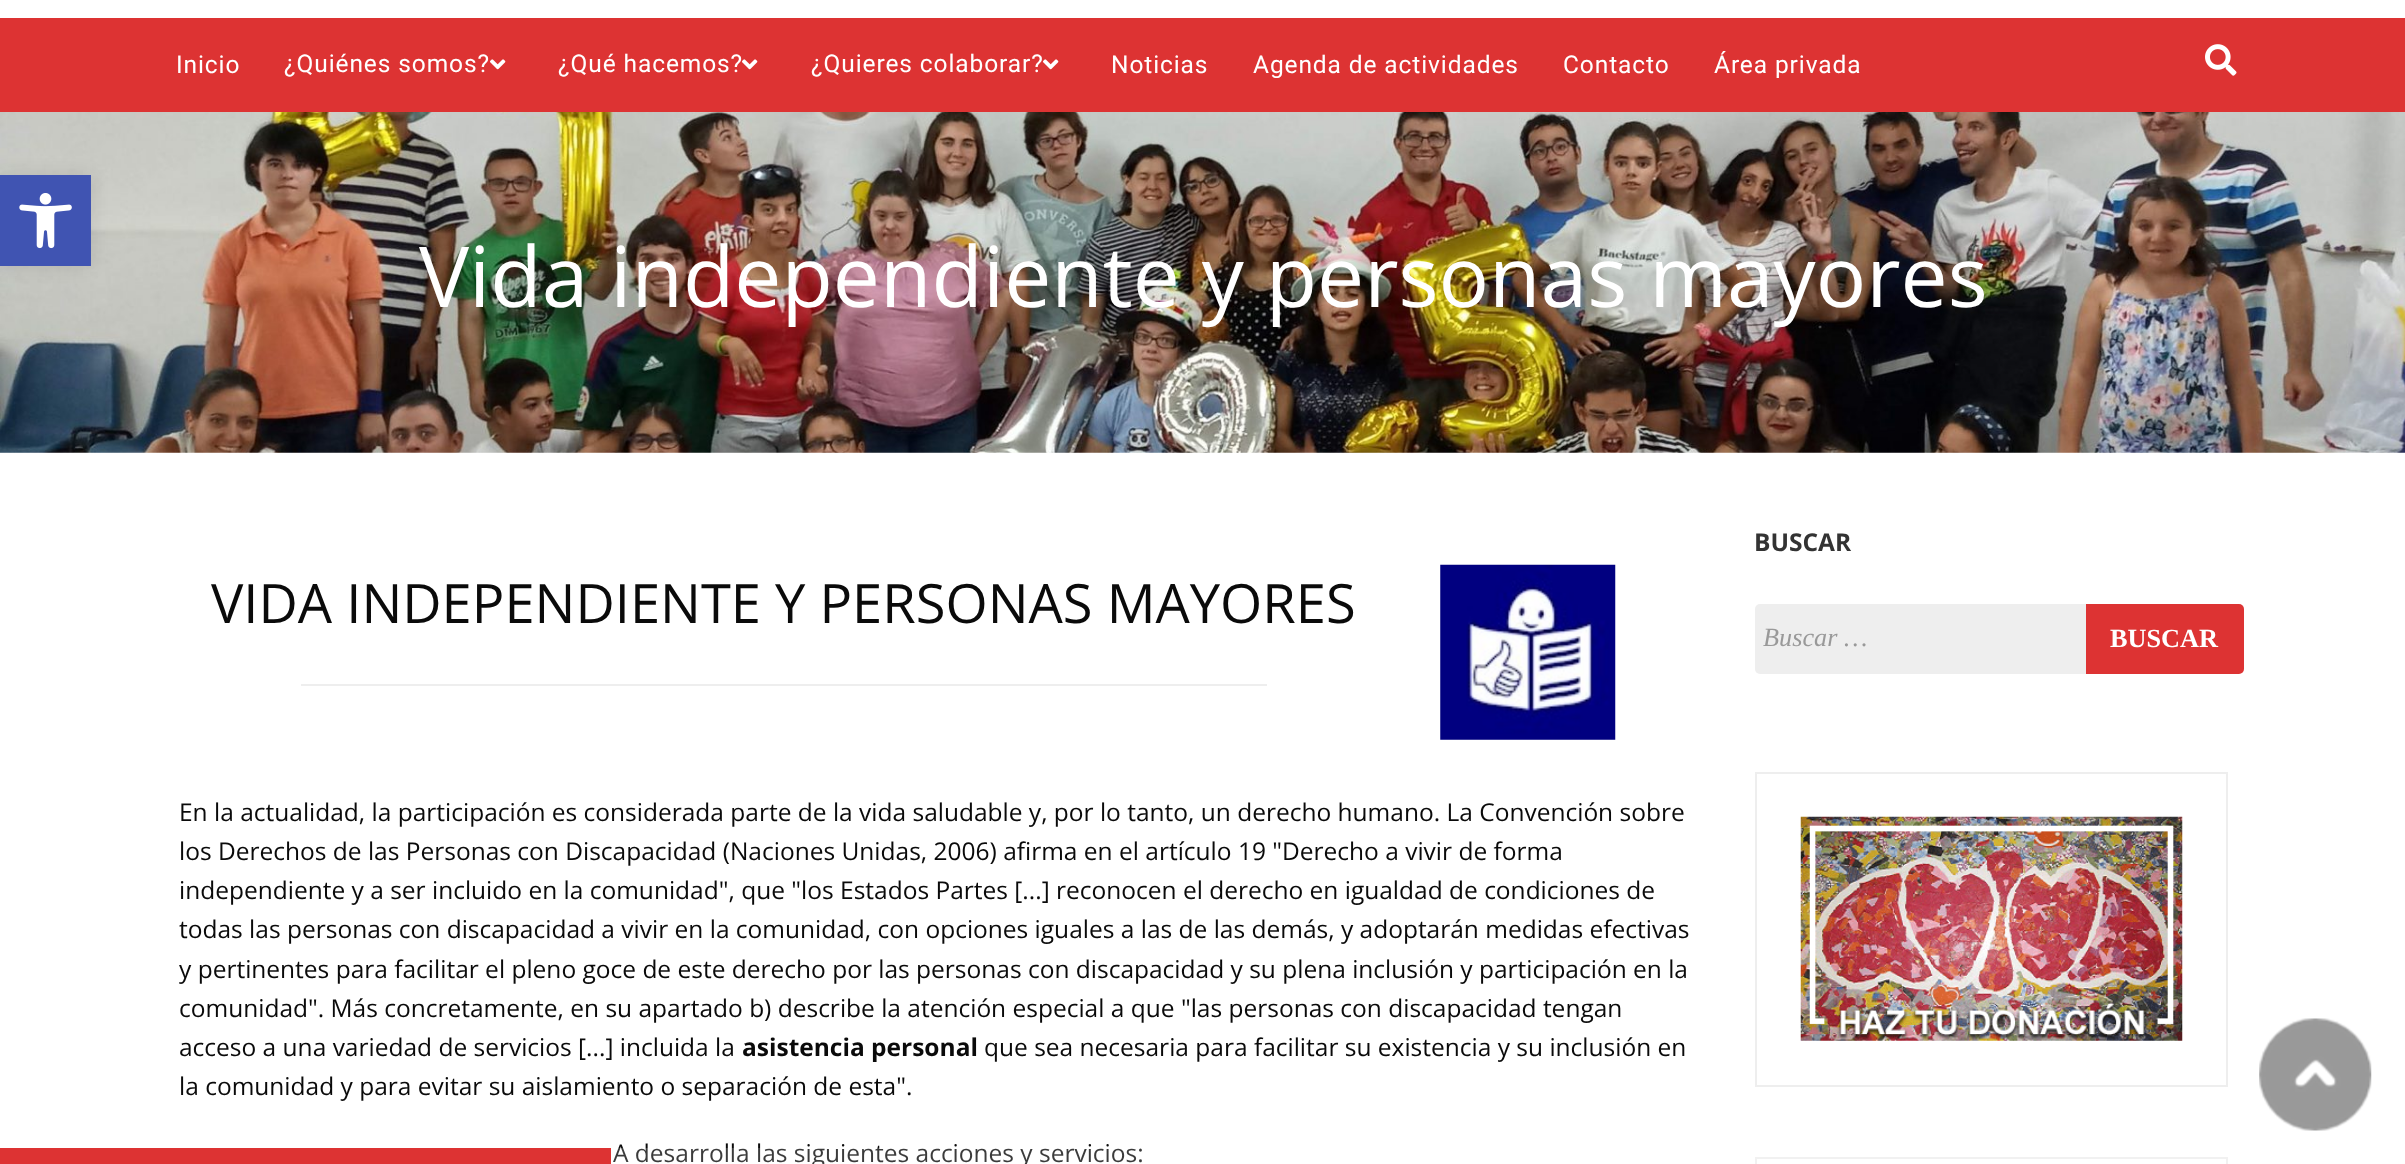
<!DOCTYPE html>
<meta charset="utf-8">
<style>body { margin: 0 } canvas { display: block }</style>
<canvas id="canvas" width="2405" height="1164"></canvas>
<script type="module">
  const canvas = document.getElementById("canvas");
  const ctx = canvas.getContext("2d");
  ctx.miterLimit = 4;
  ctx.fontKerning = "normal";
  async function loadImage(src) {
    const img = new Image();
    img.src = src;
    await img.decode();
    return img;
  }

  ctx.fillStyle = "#ffffff";
  ctx.fillRect(0, 0, 2405, 1164);
  ctx.drawImage(await loadImage("img4.png"), 0, 112, 2405, 341);
  ctx.fillStyle = "rgba(0, 0, 0, 0.1)";
  ctx.filter = "blur(9px)";
  ctx.beginPath();
  ctx.rect(0, 175, 91, 91);
  ctx.fill();
  ctx.filter = "none";
  ctx.fillStyle = "#4054b2";
  ctx.fillRect(0, 175, 91, 91);
  ctx.drawImage(await loadImage("img1.png"), 19, 193, 53, 56);
  ctx.fillStyle = "#dd3333";
  ctx.fillRect(0, 18, 2405, 94);
  ctx.letterSpacing = "0.9px";
  ctx.font = "24.5px Roboto";
  ctx.fillStyle = "#ffffff";
  ctx.fillText("Inicio", 176, 73);
  ctx.fillText("¿Quiénes somos?", 284, 72);
  ctx.drawImage(await loadImage("img2.png"), 490, 59, 16, 11);
  ctx.fillText("¿Qué hacemos?", 558, 72);
  ctx.drawImage(await loadImage("img2.png"), 742, 59, 16, 11);
  ctx.fillText("¿Quieres colaborar?", 811, 72);
  ctx.drawImage(await loadImage("img2.png"), 1043, 59, 16, 11);
  ctx.fillText("Noticias", 1111, 73);
  ctx.fillText("Agenda de actividades", 1253, 73);
  ctx.fillText("Contacto", 1563, 73);
  ctx.fillText("Área privada", 1714, 73);
  ctx.drawImage(await loadImage("img3.png"), 2205, 44, 32, 32);
  ctx.letterSpacing = "0px";
  ctx.font = "84px Open Sans";
  ctx.fillText("Vida independiente y personas mayores", 419, 307);
  ctx.font = "54.25px Open Sans";
  ctx.fillStyle = "#0a0a0a";
  ctx.fillText("VIDA INDEPENDIENTE Y PERSONAS MAYORES", 211, 623);
  ctx.fillStyle = "#eeeeee";
  ctx.fillRect(301, 684, 966, 2);
  ctx.drawImage(await loadImage("img5.png"), 1440, 564, 176, 176);
  ctx.font = "24.5px Open Sans";
  ctx.fillStyle = "#0a0a0a";
  ctx.fillText("En la actualidad, la participación es considerada parte de la vida saludable y, por lo tanto, un derecho humano. La Convención sobre", 179, 821);
  ctx.fillText("los Derechos de las Personas con Discapacidad (Naciones Unidas, 2006) afirma en el artículo 19 \"Derecho a vivir de forma", 179, 860);
  ctx.fillText("independiente y a ser incluido en la comunidad\", que \"los Estados Partes [...] reconocen el derecho en igualdad de condiciones de", 179, 899);
  ctx.fillText("todas las personas con discapacidad a vivir en la comunidad, con opciones iguales a las de las demás, y adoptarán medidas efectivas", 179, 938);
  ctx.fillText("y pertinentes para facilitar el pleno goce de este derecho por las personas con discapacidad y su plena inclusión y participación en la", 179, 978);
  ctx.fillText("comunidad\". Más concretamente, en su apartado b) describe la atención especial a que \"las personas con discapacidad tengan", 179, 1017);
  ctx.fillText("acceso a una variedad de servicios [...] incluida la", 179, 1056);
  ctx.font = "bold 24.5px Open Sans";
  ctx.fillText("asistencia personal", 742, 1056);
  ctx.font = "24.5px Open Sans";
  ctx.fillText("que sea necesaria para facilitar su existencia y su inclusión en", 984, 1056);
  ctx.fillText("la comunidad y para evitar su aislamiento o separación de esta\".", 179, 1095);
  ctx.fillText("A desarrolla las siguientes acciones y servicios:", 613, 1162);
  ctx.font = "bold 24.5px Open Sans";
  ctx.fillStyle = "#333333";
  ctx.fillText("BUSCAR", 1754, 551);
  ctx.fillStyle = "#eeeeee";
  ctx.beginPath();
  ctx.roundRect(1755, 604, 331, 70, [5, 0, 0, 5]);
  ctx.fill();
  ctx.font = "italic 26.25px Liberation Serif";
  ctx.fillStyle = "#999999";
  ctx.fillText("Buscar …", 1763, 646);
  ctx.fillStyle = "#dd3333";
  ctx.beginPath();
  ctx.roundRect(2086, 604, 158, 70, [0, 5, 5, 0]);
  ctx.fill();
  ctx.font = "bold 26.25px Liberation Serif";
  ctx.fillStyle = "#ffffff";
  ctx.fillText("BUSCAR", 2110, 647);
  ctx.strokeStyle = "#eeeeee";
  ctx.lineWidth = 2;
  ctx.strokeRect(1756, 773, 471, 313);
  ctx.drawImage(await loadImage("img6.png"), 1800, 816, 383, 225);
  ctx.strokeRect(1756, 1158, 471, 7);
  ctx.drawImage(await loadImage("img7.png"), 2259, 1018, 113, 113);
  ctx.fillStyle = "rgba(255, 255, 255, 0.2)";
  ctx.fillRect(613, 1148, 1615, 16);
  ctx.fillStyle = "#dd3333";
  ctx.fillRect(0, 1148, 611, 16);
</script>
